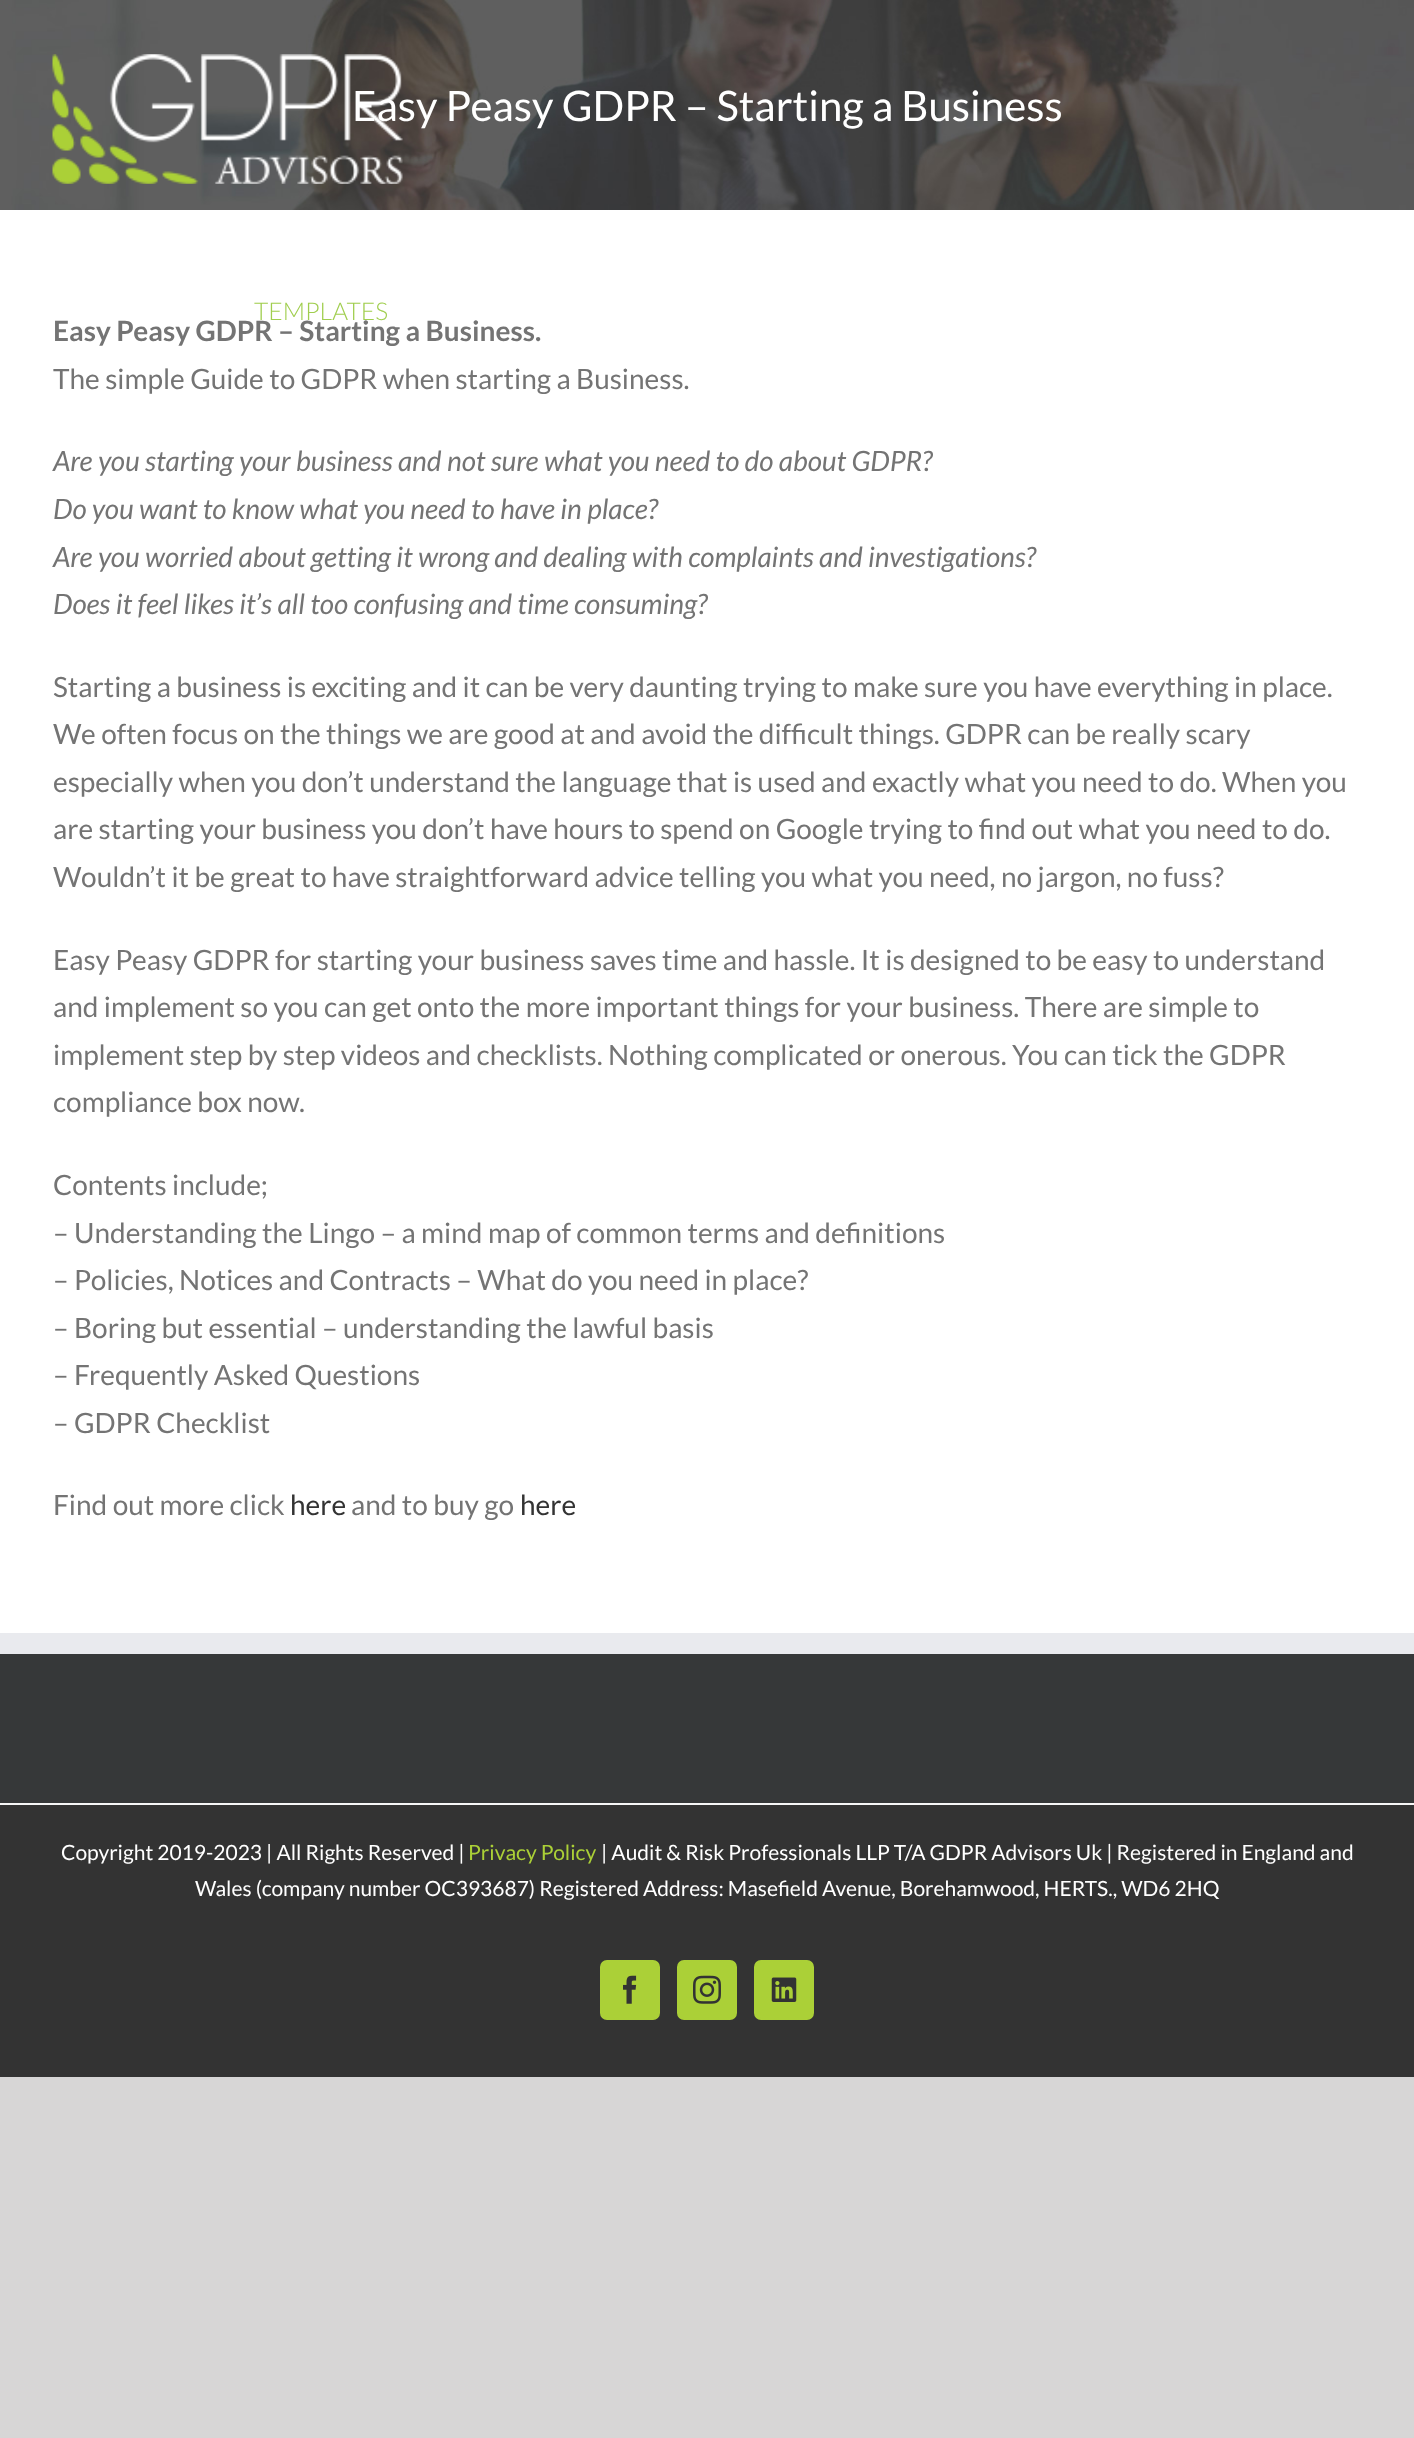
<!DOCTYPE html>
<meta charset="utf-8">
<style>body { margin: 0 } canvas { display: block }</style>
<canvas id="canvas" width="1414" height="2438"></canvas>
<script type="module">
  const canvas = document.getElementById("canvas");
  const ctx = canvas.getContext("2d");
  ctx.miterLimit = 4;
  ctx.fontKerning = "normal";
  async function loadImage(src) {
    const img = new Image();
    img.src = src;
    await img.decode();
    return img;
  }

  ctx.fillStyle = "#d7d6d6";
  ctx.fillRect(0, 0, 1414, 2438);
  ctx.fillStyle = "#ffffff";
  ctx.fillRect(0, 210, 1414, 1423);
  ctx.drawImage(await loadImage("img1.png"), 0, 0, 1414, 210);
  ctx.font = "42px Lato";
  ctx.fillText("Easy Peasy GDPR – Starting a Business", 352, 121);
  ctx.drawImage(await loadImage("img2.png"), 52, 54, 351, 130);
  ctx.font = "300 24.5px Lato";
  ctx.fillStyle = "#a0ce4e";
  ctx.fillText("TEMPLATES", 254, 320);
  ctx.font = "bold 28px Lato";
  ctx.fillStyle = "#747474";
  ctx.fillText("Easy Peasy GDPR – Starting a Business.", 53, 341);
  ctx.font = "28px Lato";
  ctx.fillText("The simple Guide to GDPR when starting a Business.", 53, 389);
  ctx.font = "italic 28px Lato";
  ctx.fillText("Are you starting your business and not sure what you need to do about GDPR?", 53, 471);
  ctx.fillText("Do you want to know what you need to have in place?", 53, 519);
  ctx.fillText("Are you worried about getting it wrong and dealing with complaints and investigations?", 53, 567);
  ctx.fillText("Does it feel likes it’s all too confusing and time consuming?", 53, 614);
  ctx.font = "28px Lato";
  ctx.fillText("Starting a business is exciting and it can be very daunting trying to make sure you have everything in place.", 53, 697);
  ctx.fillText("We often focus on the things we are good at and avoid the difficult things. GDPR can be really scary", 53, 744);
  ctx.fillText("especially when you don’t understand the language that is used and exactly what you need to do. When you", 53, 792);
  ctx.fillText("are starting your business you don’t have hours to spend on Google trying to find out what you need to do.", 53, 839);
  ctx.fillText("Wouldn’t it be great to have straightforward advice telling you what you need, no jargon, no fuss?", 53, 887);
  ctx.fillText("Easy Peasy GDPR for starting your business saves time and hassle. It is designed to be easy to understand", 53, 970);
  ctx.fillText("and implement so you can get onto the more important things for your business. There are simple to", 53, 1017);
  ctx.fillText("implement step by step videos and checklists. Nothing complicated or onerous. You can tick the GDPR", 53, 1065);
  ctx.fillText("compliance box now.", 53, 1112);
  ctx.fillText("Contents include;", 53, 1195);
  ctx.fillText("– Understanding the Lingo – a mind map of common terms and definitions", 53, 1243);
  ctx.fillText("– Policies, Notices and Contracts – What do you need in place?", 53, 1290);
  ctx.fillText("– Boring but essential – understanding the lawful basis", 53, 1338);
  ctx.fillText("– Frequently Asked Questions", 53, 1385);
  ctx.fillText("– GDPR Checklist", 53, 1433);
  ctx.fillText("Find out more click", 53, 1515);
  ctx.fillStyle = "#333333";
  ctx.fillText("here", 290, 1515);
  ctx.fillStyle = "#747474";
  ctx.fillText("and to buy go", 351, 1515);
  ctx.fillStyle = "#333333";
  ctx.fillText("here", 520, 1515);
  ctx.fillStyle = "#363839";
  ctx.fillRect(0, 1654, 1414, 149);
  ctx.fillStyle = "#e9eaee";
  ctx.fillRect(0, 1633, 1414, 21);
  ctx.fillStyle = "#333333";
  ctx.fillRect(0, 1805, 1414, 272);
  ctx.fillStyle = "#f7f7f7";
  ctx.fillRect(0, 1803, 1414, 2);
  ctx.font = "21px Lato";
  ctx.fillStyle = "#ffffff";
  ctx.fillText("Copyright 2019-2023 | All Rights Reserved |", 61, 1860);
  ctx.fillStyle = "#abd037";
  ctx.fillText("Privacy Policy", 468, 1860);
  ctx.fillStyle = "#ffffff";
  ctx.fillText("| Audit & Risk Professionals LLP T/A GDPR Advisors Uk | Registered in England and", 601, 1860);
  ctx.fillText("Wales (company number OC393687) Registered Address: Masefield Avenue, Borehamwood, HERTS., WD6 2HQ", 195, 1896);
  ctx.fillStyle = "#abd037";
  ctx.beginPath();
  ctx.roundRect(601, 1961, 58, 58, 6);
  ctx.fill();
  ctx.strokeStyle = "#abd037";
  ctx.lineWidth = 2;
  ctx.stroke();
  ctx.drawImage(await loadImage("img3.png"), 623, 1975, 14, 29);
  ctx.beginPath();
  ctx.roundRect(678, 1961, 58, 58, 6);
  ctx.fill();
  ctx.stroke();
  ctx.drawImage(await loadImage("img4.png"), 693, 1975, 28, 29);
  ctx.beginPath();
  ctx.roundRect(755, 1961, 58, 58, 6);
  ctx.fill();
  ctx.stroke();
  ctx.drawImage(await loadImage("img5.png"), 771, 1977, 26, 25);
</script>
